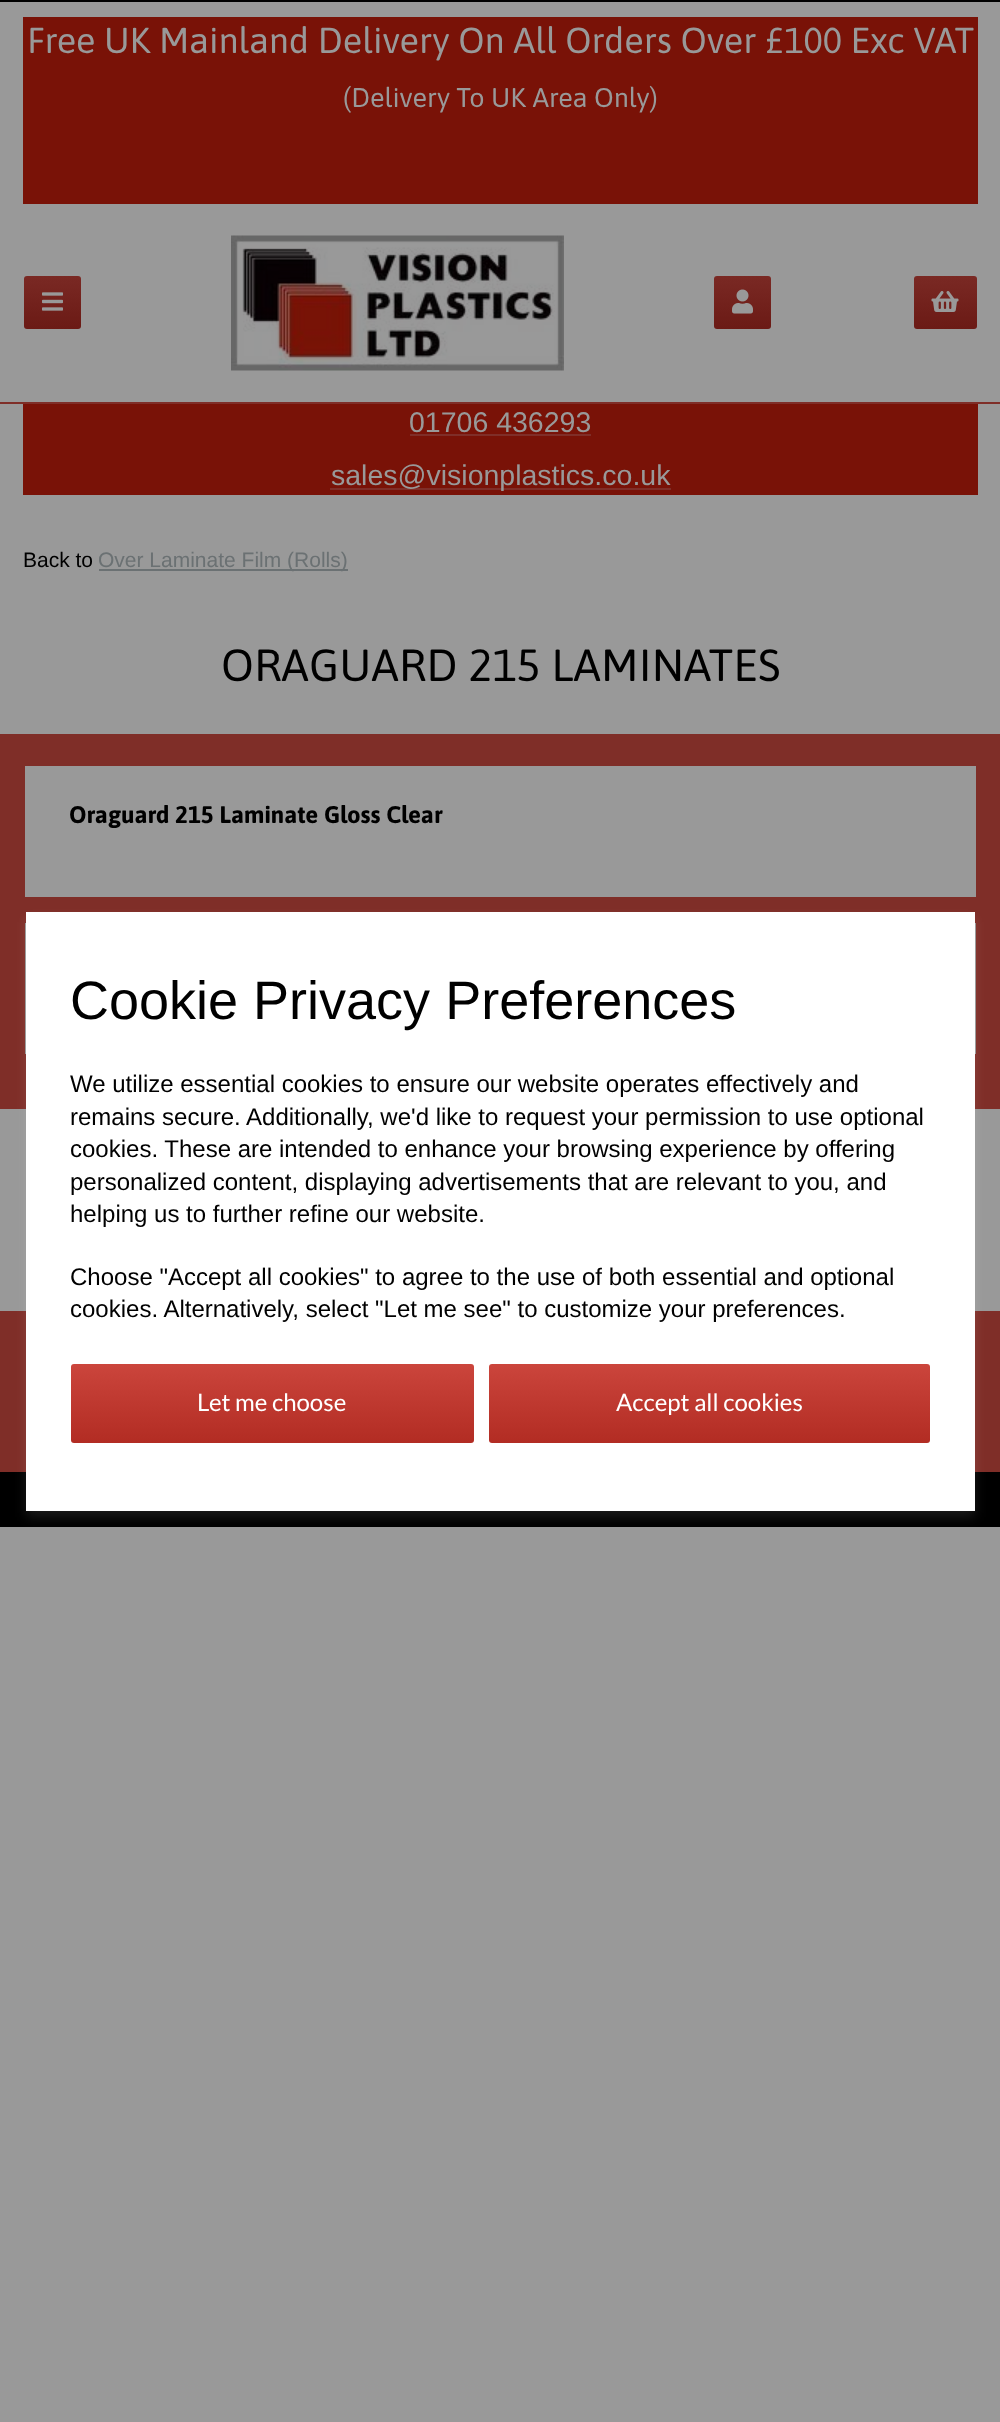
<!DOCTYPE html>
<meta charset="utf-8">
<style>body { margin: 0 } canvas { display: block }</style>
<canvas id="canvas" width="1000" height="2422"></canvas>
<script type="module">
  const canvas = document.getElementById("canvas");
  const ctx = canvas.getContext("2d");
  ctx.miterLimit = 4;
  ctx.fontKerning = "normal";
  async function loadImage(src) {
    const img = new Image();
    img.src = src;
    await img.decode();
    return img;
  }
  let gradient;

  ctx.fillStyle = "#999999";
  ctx.fillRect(0, 0, 1000, 2422);
  ctx.fillStyle = "#000000";
  ctx.fillRect(0, 0, 1000, 2);
  ctx.fillStyle = "#791207";
  ctx.fillRect(23, 17, 955, 187);
  ctx.font = "36px Asap";
  ctx.fillStyle = "#999999";
  ctx.fillText("Free UK Mainland Delivery On All Orders Over £100 Exc VAT", 27, 53);
  ctx.font = "27px Asap";
  ctx.fillText("(Delivery To UK Area Only)", 343, 107);
  ctx.fillStyle = "#7f2e28";
  ctx.fillRect(0, 402, 1000, 2);
  gradient = ctx.createLinearGradient(53, 276, 53, 329);
  gradient.addColorStop(0, "#7a2924");
  gradient.addColorStop(1, "#6b1a15");
  ctx.fillStyle = gradient;
  ctx.beginPath();
  ctx.roundRect(24, 276, 57, 53, 3);
  ctx.fill();
  ctx.drawImage(await loadImage("img1.png"), 42, 292, 21, 19);
  ctx.drawImage(await loadImage("img2.png"), 231, 235, 333, 136);
  gradient = ctx.createLinearGradient(743, 276, 743, 329);
  gradient.addColorStop(0, "#7a2924");
  gradient.addColorStop(1, "#6b1a15");
  ctx.fillStyle = gradient;
  ctx.beginPath();
  ctx.roundRect(714, 276, 57, 53, 3);
  ctx.fill();
  ctx.drawImage(await loadImage("img3.png"), 732, 289, 21, 25);
  gradient = ctx.createLinearGradient(945, 276, 945, 329);
  gradient.addColorStop(0, "#7a2924");
  gradient.addColorStop(1, "#6b1a15");
  ctx.fillStyle = gradient;
  ctx.beginPath();
  ctx.roundRect(914, 276, 63, 53, 3);
  ctx.fill();
  ctx.drawImage(await loadImage("img4.png"), 931, 291, 28, 21);
  ctx.fillStyle = "#791207";
  ctx.fillRect(23, 404, 955, 91);
  ctx.font = "28.5px Liberation Sans";
  ctx.fillStyle = "#999999";
  ctx.fillText("01706 436293", 409, 432);
  ctx.fillStyle = "#7f2e28";
  ctx.fillRect(410, 434, 181, 2);
  ctx.fillRect(330, 488, 341, 2);
  ctx.fillStyle = "#999999";
  ctx.fillText("sales@visionplastics.co.uk", 331, 485);
  ctx.font = "21px Liberation Sans";
  ctx.fillStyle = "#000000";
  ctx.fillText("Back to", 23, 567);
  ctx.fillStyle = "#6b7173";
  ctx.fillRect(99, 569, 249, 2);
  ctx.fillText("Over Laminate Film (Rolls)", 98, 567);
  ctx.fillStyle = "#7f2e28";
  ctx.fillRect(0, 734, 1000, 375);
  ctx.font = "45px Asap";
  ctx.fillStyle = "#000000";
  ctx.fillText("ORAGUARD 215 LAMINATES", 221, 681);
  ctx.fillStyle = "#999999";
  ctx.fillRect(25, 766, 951, 131);
  ctx.font = "bold 24px Asap";
  ctx.fillStyle = "#000000";
  ctx.fillText("Oraguard 215 Laminate Gloss Clear", 69, 823);
  ctx.fillStyle = "#999999";
  ctx.fillRect(25, 923, 951, 131);
  ctx.fillStyle = "#7f2e28";
  ctx.fillRect(0, 1311, 1000, 161);
  ctx.fillStyle = "#000000";
  ctx.fillRect(0, 1472, 1000, 55);
  ctx.fillStyle = "rgba(255, 255, 255, 0.1)";
  ctx.filter = "blur(6px)";
  ctx.beginPath();
  ctx.rect(26, 918, 949, 599);
  ctx.fill();
  ctx.filter = "none";
  ctx.fillStyle = "#ffffff";
  ctx.fillRect(26, 912, 949, 599);
  ctx.font = "54px Liberation Sans";
  ctx.fillStyle = "#000000";
  ctx.fillText("Cookie Privacy Preferences", 70, 1019);
  ctx.font = "24px Liberation Sans";
  ctx.fillText("We utilize essential cookies to ensure our website operates effectively and", 70, 1092);
  ctx.fillText("remains secure. Additionally, we'd like to request your permission to use optional", 70, 1125);
  ctx.fillText("cookies. These are intended to enhance your browsing experience by offering", 70, 1157);
  ctx.fillText("personalized content, displaying advertisements that are relevant to you, and", 70, 1190);
  ctx.fillText("helping us to further refine our website.", 70, 1222);
  ctx.fillText("Choose \"Accept all cookies\" to agree to the use of both essential and optional", 70, 1285);
  ctx.fillText("cookies. Alternatively, select \"Let me see\" to customize your preferences.", 70, 1317);
  gradient = ctx.createLinearGradient(272, 1364, 272, 1443);
  gradient.addColorStop(0, "#cb453c");
  gradient.addColorStop(1, "#b22c23");
  ctx.fillStyle = gradient;
  ctx.beginPath();
  ctx.roundRect(71, 1364, 403, 79, 3);
  ctx.fill();
  ctx.font = "24px Lato";
  ctx.fillStyle = "#ffffff";
  ctx.fillText("Let me choose", 197, 1411);
  gradient = ctx.createLinearGradient(710, 1364, 710, 1443);
  gradient.addColorStop(0, "#cb453c");
  gradient.addColorStop(1, "#b22c23");
  ctx.fillStyle = gradient;
  ctx.beginPath();
  ctx.roundRect(489, 1364, 441, 79, 3);
  ctx.fill();
  ctx.fillStyle = "#ffffff";
  ctx.fillText("Accept all cookies", 616, 1411);
</script>
